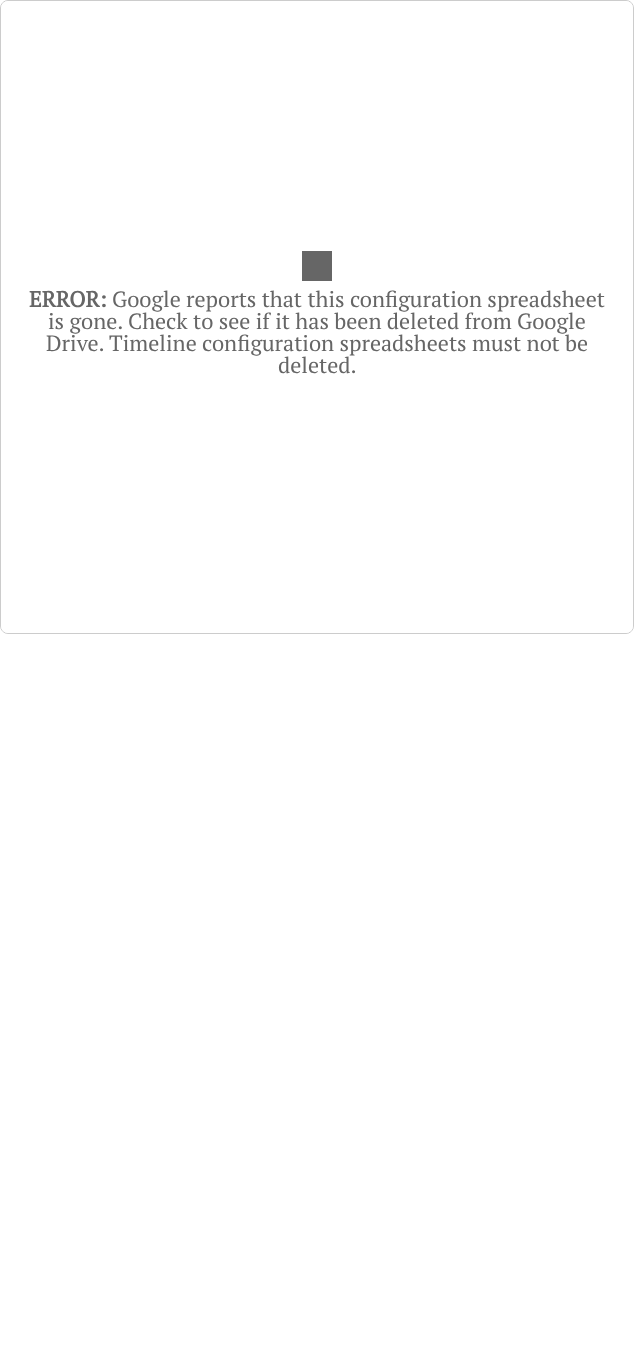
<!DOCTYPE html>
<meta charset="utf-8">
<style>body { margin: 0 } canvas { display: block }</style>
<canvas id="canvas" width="634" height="1352"></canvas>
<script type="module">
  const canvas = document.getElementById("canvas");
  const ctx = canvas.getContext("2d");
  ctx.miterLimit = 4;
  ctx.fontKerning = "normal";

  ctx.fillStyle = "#ffffff";
  ctx.fillRect(0, 0, 634, 1352);
  ctx.beginPath();
  ctx.roundRect(0.5, 0.5, 633, 633, 7.5);
  ctx.strokeStyle = "#cccccc";
  ctx.stroke();
  ctx.fillStyle = "rgba(255, 255, 255, 0.8)";
  ctx.beginPath();
  ctx.roundRect(1, 1, 632, 632, 7);
  ctx.fill();
  ctx.fillStyle = "#666666";
  ctx.fillRect(302, 251, 30, 30);
  ctx.font = "bold 22px PT Serif";
  ctx.fillText("ERROR:", 29, 307);
  ctx.font = "22px PT Serif";
  ctx.fillText("Google reports that this configuration spreadsheet", 112, 307);
  ctx.fillText("is gone. Check to see if it has been deleted from Google", 48, 329);
  ctx.fillText("Drive. Timeline configuration spreadsheets must not be", 46, 351);
  ctx.fillText("deleted.", 278, 373);
</script>
